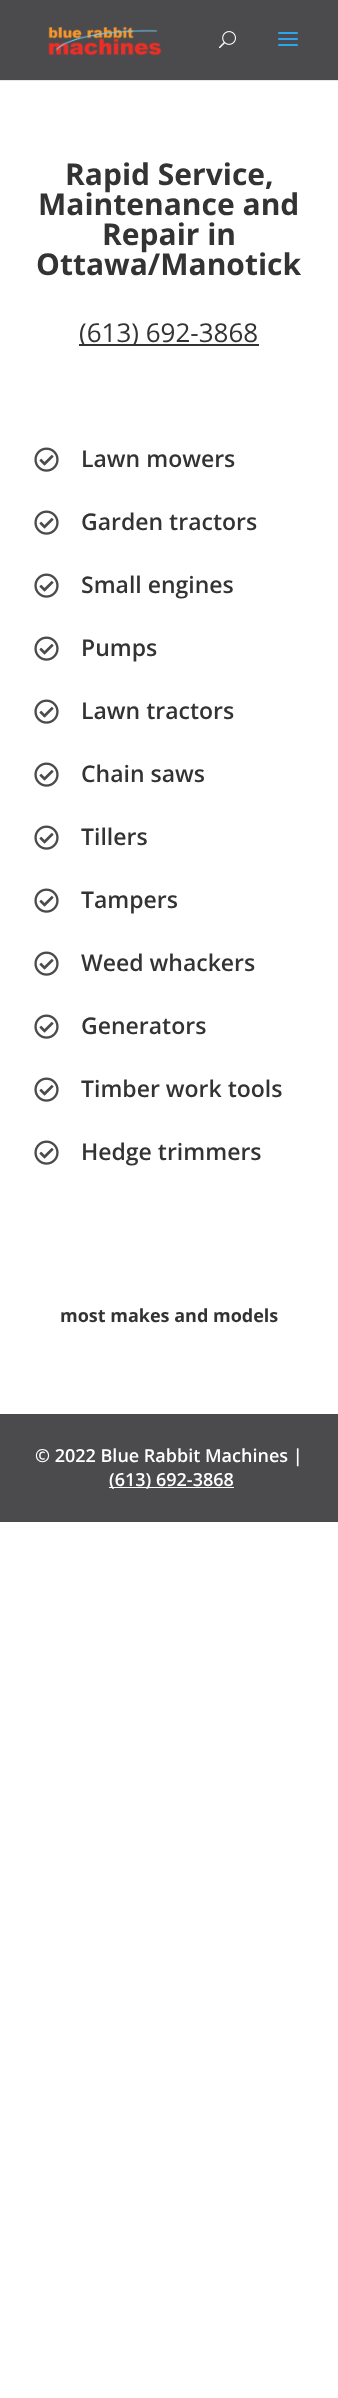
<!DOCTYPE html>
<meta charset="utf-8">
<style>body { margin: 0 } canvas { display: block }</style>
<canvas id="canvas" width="338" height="2398"></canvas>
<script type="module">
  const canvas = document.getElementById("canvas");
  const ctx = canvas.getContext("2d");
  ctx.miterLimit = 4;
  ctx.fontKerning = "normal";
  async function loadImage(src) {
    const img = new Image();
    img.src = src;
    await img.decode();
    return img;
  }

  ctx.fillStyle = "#ffffff";
  ctx.fillRect(0, 0, 338, 2398);
  ctx.fillStyle = "#e6e6e6";
  ctx.fillRect(0, 80, 338, 1);
  ctx.fillStyle = "#4b4b4d";
  ctx.fillRect(0, 0, 338, 80);
  ctx.drawImage(await loadImage("img1.png"), 48, 27, 114, 29);
  ctx.drawImage(await loadImage("img2.png"), 219, 31, 17, 18);
  ctx.drawImage(await loadImage("img3.png"), 278, 32, 20, 14);
  ctx.font = "bold 30px Open Sans";
  ctx.fillStyle = "#333333";
  ctx.fillText("Rapid Service,", 65, 185);
  ctx.fillText("Maintenance and", 38, 215);
  ctx.fillText("Repair in", 102, 245);
  ctx.fillText("Ottawa/Manotick", 36, 275);
  ctx.fillRect(79, 344, 180, 2);
  ctx.font = "26px Open Sans";
  ctx.fillText("(613) 692-3868", 79, 342);
  ctx.drawImage(await loadImage("img4.png"), 34, 447, 25, 25);
  ctx.font = "600 23px Open Sans";
  ctx.fillText("Lawn mowers", 81, 467);
  ctx.drawImage(await loadImage("img4.png"), 34, 510, 25, 25);
  ctx.fillText("Garden tractors", 81, 530);
  ctx.drawImage(await loadImage("img4.png"), 34, 573, 25, 25);
  ctx.fillText("Small engines", 81, 593);
  ctx.drawImage(await loadImage("img4.png"), 34, 636, 25, 25);
  ctx.fillText("Pumps", 81, 656);
  ctx.drawImage(await loadImage("img4.png"), 34, 699, 25, 25);
  ctx.fillText("Lawn tractors", 81, 719);
  ctx.drawImage(await loadImage("img4.png"), 34, 762, 25, 25);
  ctx.fillText("Chain saws", 81, 782);
  ctx.drawImage(await loadImage("img4.png"), 34, 825, 25, 25);
  ctx.fillText("Tillers", 81, 845);
  ctx.drawImage(await loadImage("img4.png"), 34, 888, 25, 25);
  ctx.fillText("Tampers", 81, 908);
  ctx.drawImage(await loadImage("img4.png"), 34, 951, 25, 25);
  ctx.fillText("Weed whackers", 81, 971);
  ctx.drawImage(await loadImage("img4.png"), 34, 1014, 25, 25);
  ctx.fillText("Generators", 81, 1034);
  ctx.drawImage(await loadImage("img4.png"), 34, 1077, 25, 25);
  ctx.fillText("Timber work tools", 81, 1097);
  ctx.drawImage(await loadImage("img4.png"), 34, 1140, 25, 25);
  ctx.fillText("Hedge trimmers", 81, 1160);
  ctx.font = "bold 18px Open Sans";
  ctx.fillText("most makes and models", 60, 1322);
  ctx.fillStyle = "#4b4b4d";
  ctx.fillRect(0, 1414, 338, 108);
  ctx.font = "600 18px Open Sans";
  ctx.fillStyle = "#ffffff";
  ctx.fillText("© 2022 Blue Rabbit Machines |", 35, 1462);
  ctx.fillRect(109, 1487, 125, 1);
  ctx.fillText("(613) 692-3868", 109, 1486);
</script>
